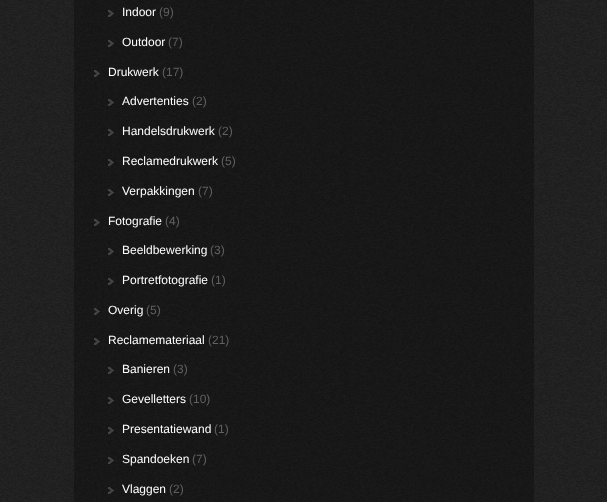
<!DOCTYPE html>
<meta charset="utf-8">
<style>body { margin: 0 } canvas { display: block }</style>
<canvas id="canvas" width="607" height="502"></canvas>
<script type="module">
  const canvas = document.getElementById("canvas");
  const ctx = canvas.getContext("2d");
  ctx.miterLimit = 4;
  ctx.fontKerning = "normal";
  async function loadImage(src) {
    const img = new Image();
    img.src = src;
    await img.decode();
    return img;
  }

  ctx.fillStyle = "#ffffff";
  ctx.fillRect(0, 0, 607, 502);
  ctx.drawImage(await loadImage("img1.png"), 0, 0, 607, 502);
  ctx.fillStyle = "rgba(0, 0, 0, 0.27)";
  ctx.fillRect(74, 0, 460, 502);
  ctx.drawImage(await loadImage("img2.png"), 108, 10, 6, 7);
  ctx.font = "12px Liberation Sans";
  ctx.fillStyle = "#ffffff";
  ctx.fillText("Indoor", 122, 16);
  ctx.fillStyle = "#626060";
  ctx.fillText("(9)", 159, 16);
  ctx.drawImage(await loadImage("img3.png"), 108, 40, 6, 7);
  ctx.fillStyle = "#ffffff";
  ctx.fillText("Outdoor", 122, 46);
  ctx.fillStyle = "#626060";
  ctx.fillText("(7)", 168, 46);
  ctx.drawImage(await loadImage("img4.png"), 94, 70, 6, 7);
  ctx.fillStyle = "#ffffff";
  ctx.fillText("Drukwerk", 108, 76);
  ctx.fillStyle = "#626060";
  ctx.fillText("(17)", 162, 76);
  ctx.drawImage(await loadImage("img5.png"), 108, 99, 6, 7);
  ctx.fillStyle = "#ffffff";
  ctx.fillText("Advertenties", 122, 105);
  ctx.fillStyle = "#626060";
  ctx.fillText("(2)", 192, 105);
  ctx.drawImage(await loadImage("img6.png"), 108, 129, 6, 7);
  ctx.fillStyle = "#ffffff";
  ctx.fillText("Handelsdrukwerk", 122, 135);
  ctx.fillStyle = "#626060";
  ctx.fillText("(2)", 218, 135);
  ctx.drawImage(await loadImage("img7.png"), 108, 159, 6, 7);
  ctx.fillStyle = "#ffffff";
  ctx.fillText("Reclamedrukwerk", 122, 165);
  ctx.fillStyle = "#626060";
  ctx.fillText("(5)", 221, 165);
  ctx.drawImage(await loadImage("img8.png"), 108, 189, 6, 7);
  ctx.fillStyle = "#ffffff";
  ctx.fillText("Verpakkingen", 122, 195);
  ctx.fillStyle = "#626060";
  ctx.fillText("(7)", 198, 195);
  ctx.drawImage(await loadImage("img9.png"), 94, 219, 6, 7);
  ctx.fillStyle = "#ffffff";
  ctx.fillText("Fotografie", 108, 225);
  ctx.fillStyle = "#626060";
  ctx.fillText("(4)", 165, 225);
  ctx.drawImage(await loadImage("img10.png"), 108, 248, 6, 7);
  ctx.fillStyle = "#ffffff";
  ctx.fillText("Beeldbewerking", 122, 254);
  ctx.fillStyle = "#626060";
  ctx.fillText("(3)", 210, 254);
  ctx.drawImage(await loadImage("img11.png"), 108, 278, 6, 7);
  ctx.fillStyle = "#ffffff";
  ctx.fillText("Portretfotografie", 122, 284);
  ctx.fillStyle = "#626060";
  ctx.fillText("(1)", 211, 284);
  ctx.drawImage(await loadImage("img12.png"), 94, 308, 6, 7);
  ctx.fillStyle = "#ffffff";
  ctx.fillText("Overig", 108, 314);
  ctx.fillStyle = "#626060";
  ctx.fillText("(5)", 146, 314);
  ctx.drawImage(await loadImage("img13.png"), 94, 338, 6, 7);
  ctx.fillStyle = "#ffffff";
  ctx.fillText("Reclamemateriaal", 108, 344);
  ctx.fillStyle = "#626060";
  ctx.fillText("(21)", 208, 344);
  ctx.drawImage(await loadImage("img14.png"), 108, 367, 6, 7);
  ctx.fillStyle = "#ffffff";
  ctx.fillText("Banieren", 122, 373);
  ctx.fillStyle = "#626060";
  ctx.fillText("(3)", 173, 373);
  ctx.drawImage(await loadImage("img15.png"), 108, 397, 6, 7);
  ctx.fillStyle = "#ffffff";
  ctx.fillText("Gevelletters", 122, 403);
  ctx.fillStyle = "#626060";
  ctx.fillText("(10)", 189, 403);
  ctx.drawImage(await loadImage("img16.png"), 108, 427, 6, 7);
  ctx.fillStyle = "#ffffff";
  ctx.fillText("Presentatiewand", 122, 433);
  ctx.fillStyle = "#626060";
  ctx.fillText("(1)", 214, 433);
  ctx.drawImage(await loadImage("img17.png"), 108, 457, 6, 7);
  ctx.fillStyle = "#ffffff";
  ctx.fillText("Spandoeken", 122, 463);
  ctx.fillStyle = "#626060";
  ctx.fillText("(7)", 192, 463);
  ctx.drawImage(await loadImage("img18.png"), 108, 487, 6, 7);
  ctx.fillStyle = "#ffffff";
  ctx.fillText("Vlaggen", 122, 493);
  ctx.fillStyle = "#626060";
  ctx.fillText("(2)", 169, 493);
</script>
